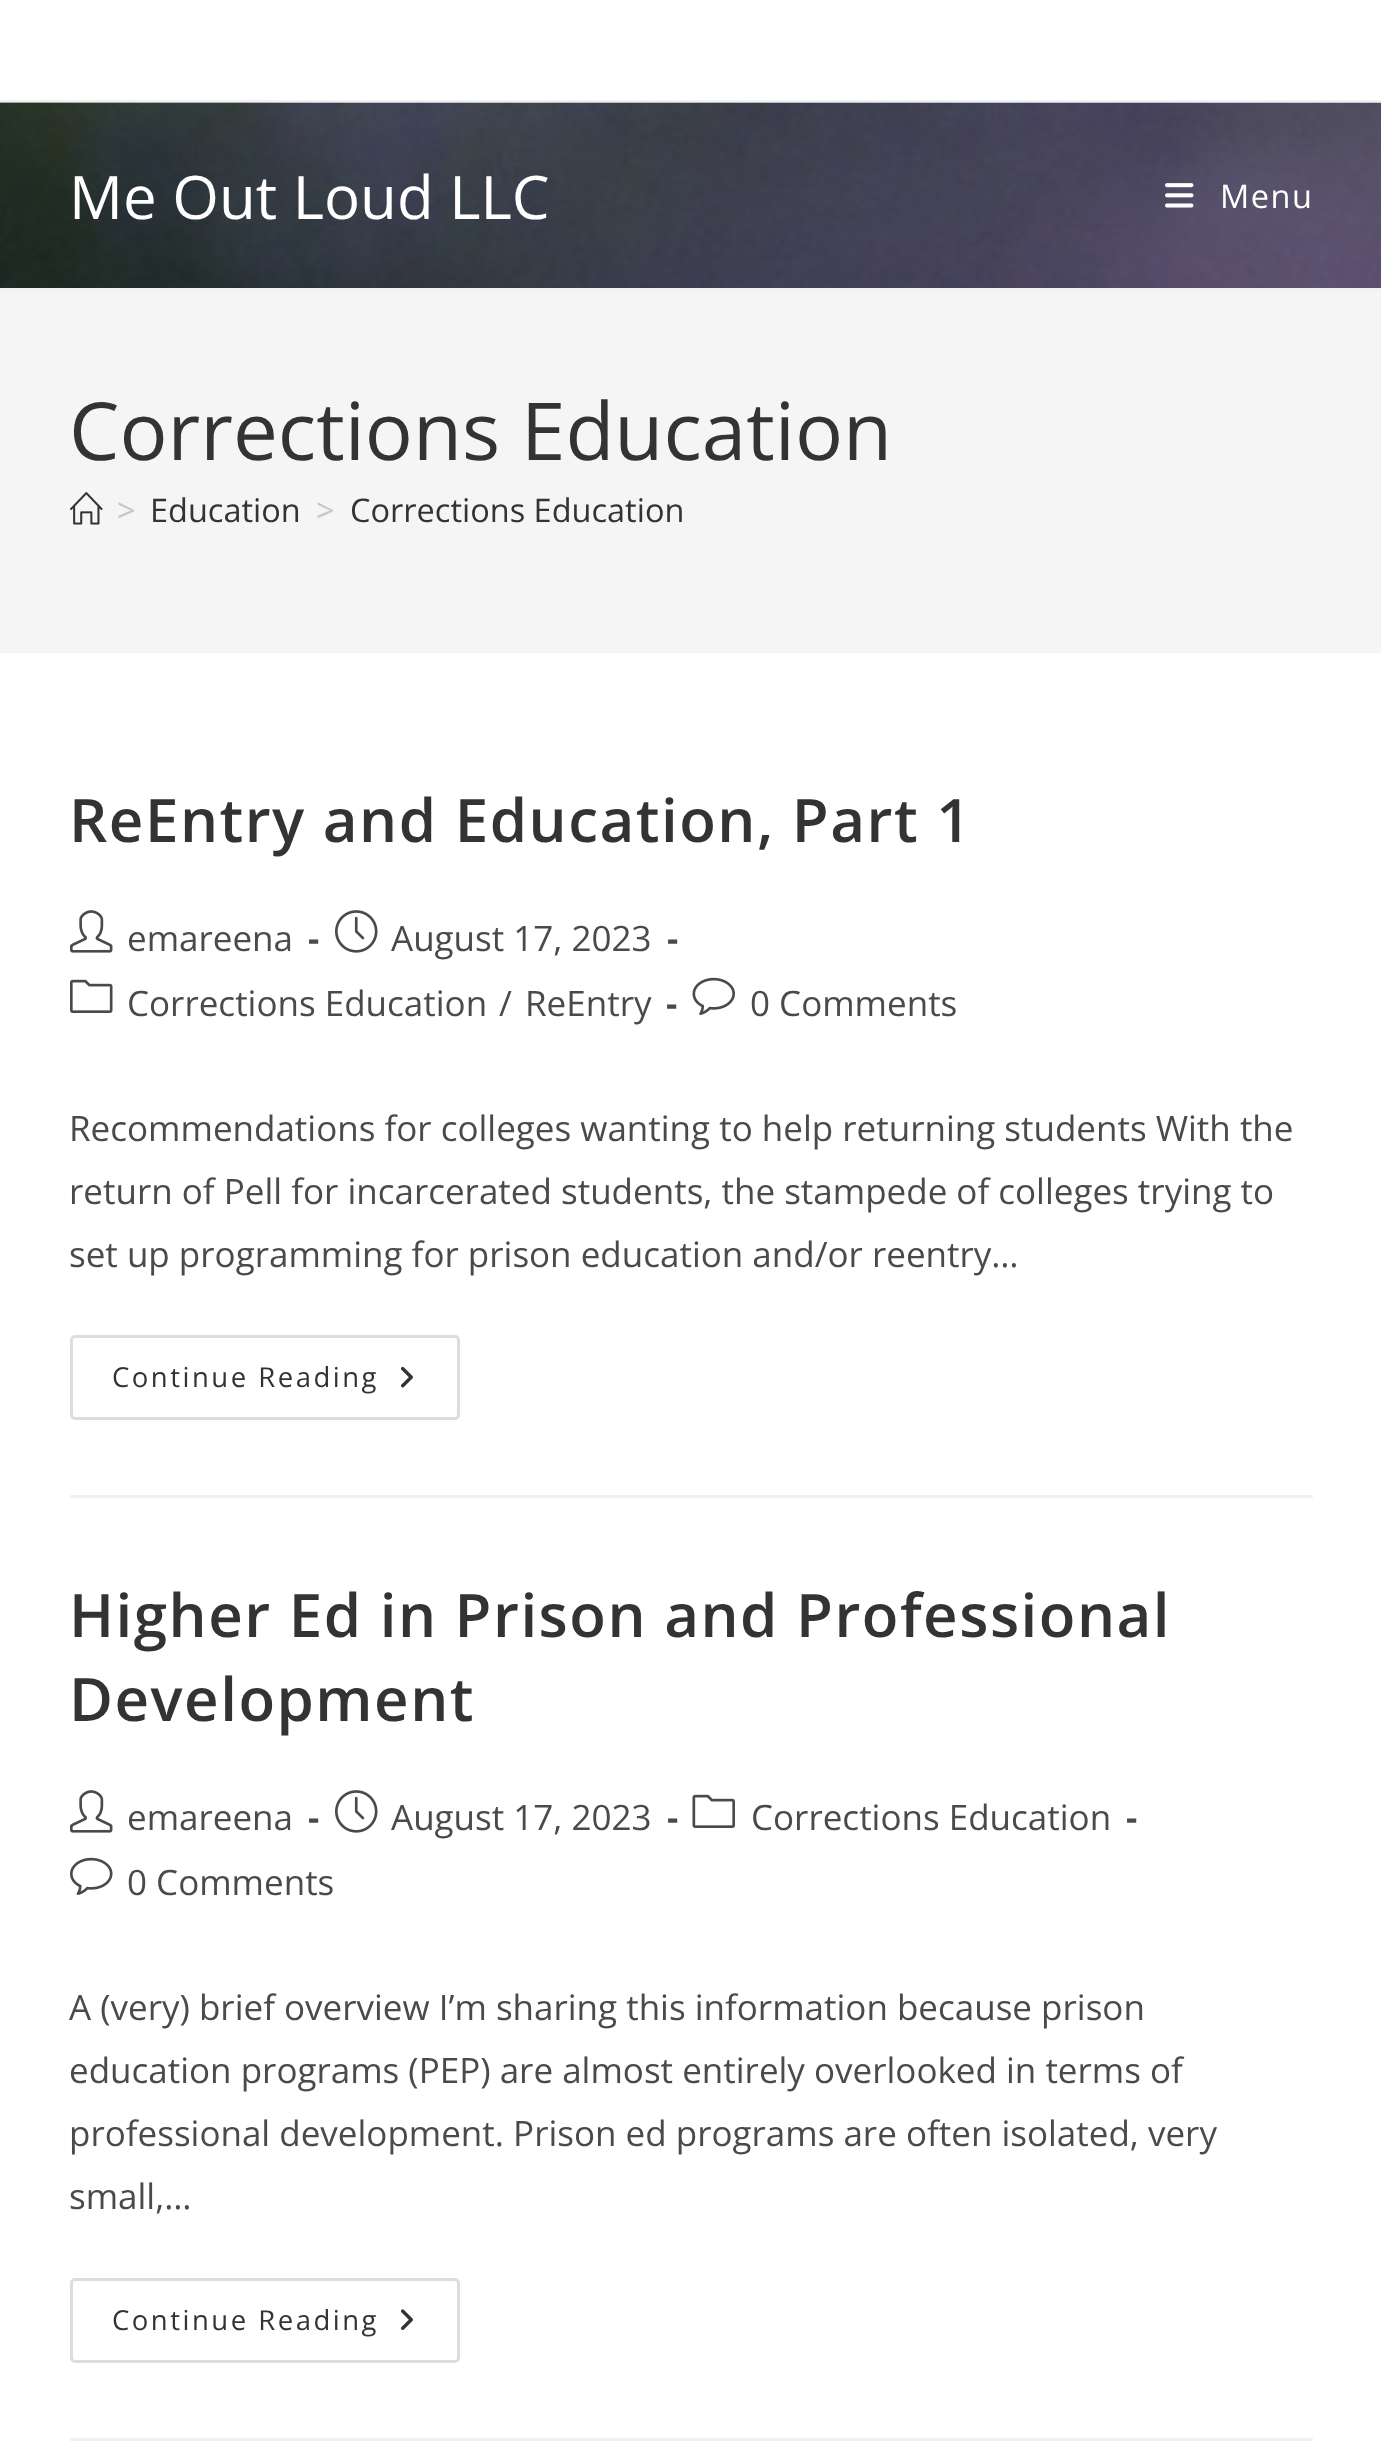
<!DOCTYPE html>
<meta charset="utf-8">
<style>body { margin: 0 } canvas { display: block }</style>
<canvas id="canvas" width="1381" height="2462"></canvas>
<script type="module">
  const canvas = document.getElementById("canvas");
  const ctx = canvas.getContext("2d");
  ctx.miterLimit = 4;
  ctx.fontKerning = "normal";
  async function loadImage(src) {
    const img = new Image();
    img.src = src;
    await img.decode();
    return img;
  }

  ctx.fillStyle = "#ffffff";
  ctx.fillRect(0, 0, 1381, 2462);
  ctx.fillStyle = "#f1f1f1";
  ctx.fillRect(0, 100, 1381, 3);
  ctx.drawImage(await loadImage("img1.png"), 0, 102, 1381, 186);
  ctx.fillRect(0, 288, 1381, 3);
  ctx.font = "60px Open Sans";
  ctx.fillStyle = "#ffffff";
  ctx.fillText("Me Out Loud LLC", 69, 219);
  ctx.drawImage(await loadImage("img2.png"), 1165, 183, 29, 25);
  ctx.letterSpacing = "1.5px";
  ctx.font = "32.5px Open Sans";
  ctx.fillText("Menu", 1220, 208);
  ctx.fillStyle = "#f5f5f5";
  ctx.fillRect(0, 291, 1381, 362);
  ctx.letterSpacing = "0px";
  ctx.font = "80px Open Sans";
  ctx.fillStyle = "#333333";
  ctx.fillText("Corrections Education", 69, 460);
  ctx.drawImage(await loadImage("img3.png"), 70, 492, 33, 33);
  ctx.font = "32.5px Open Sans";
  ctx.fillStyle = "#c6c6c6";
  ctx.fillText(">", 117, 522);
  ctx.fillStyle = "#333333";
  ctx.fillText("Education", 150, 522);
  ctx.fillStyle = "#c6c6c6";
  ctx.fillText(">", 316, 522);
  ctx.fillStyle = "#333333";
  ctx.fillText("Corrections Education", 350, 522);
  ctx.fillStyle = "#f1f1f1";
  ctx.fillRect(70, 1495, 1243, 3);
  ctx.letterSpacing = "1.5px";
  ctx.font = "600 60px Open Sans";
  ctx.fillStyle = "#333333";
  ctx.fillText("ReEntry and Education, Part 1", 69, 842);
  ctx.drawImage(await loadImage("img4.png"), 70, 910, 43, 43);
  ctx.letterSpacing = "0px";
  ctx.font = "35px Open Sans";
  ctx.fillStyle = "#4a4a4a";
  ctx.fillText("emareena", 127, 951);
  ctx.font = "bold 35px Open Sans";
  ctx.fillText("-", 308, 951);
  ctx.drawImage(await loadImage("img5.png"), 335, 910, 43, 43);
  ctx.font = "35px Open Sans";
  ctx.fillText("August 17, 2023", 391, 951);
  ctx.font = "bold 35px Open Sans";
  ctx.fillText("-", 667, 951);
  ctx.drawImage(await loadImage("img6.png"), 70, 979, 43, 34);
  ctx.font = "35px Open Sans";
  ctx.fillText("Corrections Education", 127, 1016);
  ctx.fillText("/", 499, 1016);
  ctx.fillText("ReEntry", 525, 1016);
  ctx.font = "bold 35px Open Sans";
  ctx.fillText("-", 666, 1016);
  ctx.drawImage(await loadImage("img7.png"), 692, 977, 43, 38);
  ctx.font = "35px Open Sans";
  ctx.fillText("0 Comments", 750, 1016);
  ctx.fillText("Recommendations for colleges wanting to help returning students With the", 69, 1141);
  ctx.fillText("return of Pell for incarcerated students, the stampede of colleges trying to", 69, 1204);
  ctx.fillText("set up programming for prison education and/or reentry…", 69, 1267);
  ctx.beginPath();
  ctx.roundRect(71.5, 1336.5, 387, 82, 3.5);
  ctx.strokeStyle = "#dddddd";
  ctx.lineWidth = 3;
  ctx.stroke();
  ctx.letterSpacing = "2.5px";
  ctx.font = "27.5px Open Sans";
  ctx.fillStyle = "#333333";
  ctx.fillText("Continue Reading", 112, 1387);
  ctx.drawImage(await loadImage("img8.png"), 400, 1366, 13, 22);
  ctx.fillStyle = "#f1f1f1";
  ctx.fillRect(70, 2438, 1243, 3);
  ctx.letterSpacing = "1.5px";
  ctx.font = "600 60px Open Sans";
  ctx.fillStyle = "#333333";
  ctx.fillText("Higher Ed in Prison and Professional", 69, 1637);
  ctx.fillText("Development", 69, 1721);
  ctx.drawImage(await loadImage("img4.png"), 70, 1790, 43, 43);
  ctx.letterSpacing = "0px";
  ctx.font = "35px Open Sans";
  ctx.fillStyle = "#4a4a4a";
  ctx.fillText("emareena", 127, 1830);
  ctx.font = "bold 35px Open Sans";
  ctx.fillText("-", 308, 1830);
  ctx.drawImage(await loadImage("img5.png"), 335, 1790, 43, 43);
  ctx.font = "35px Open Sans";
  ctx.fillText("August 17, 2023", 391, 1830);
  ctx.font = "bold 35px Open Sans";
  ctx.fillText("-", 667, 1830);
  ctx.drawImage(await loadImage("img9.png"), 692, 1794, 43, 34);
  ctx.font = "35px Open Sans";
  ctx.fillText("Corrections Education", 751, 1830);
  ctx.font = "bold 35px Open Sans";
  ctx.fillText("-", 1126, 1830);
  ctx.drawImage(await loadImage("img10.png"), 70, 1857, 43, 38);
  ctx.font = "35px Open Sans";
  ctx.fillText("0 Comments", 127, 1895);
  ctx.fillText("A (very) brief overview I’m sharing this information because prison", 69, 2020);
  ctx.fillText("education programs (PEP) are almost entirely overlooked in terms of", 69, 2083);
  ctx.fillText("professional development. Prison ed programs are often isolated, very", 69, 2146);
  ctx.fillText("small,…", 69, 2209);
  ctx.beginPath();
  ctx.roundRect(71.5, 2279.5, 387, 82, 3.5);
  ctx.stroke();
  ctx.letterSpacing = "2.5px";
  ctx.font = "27.5px Open Sans";
  ctx.fillStyle = "#333333";
  ctx.fillText("Continue Reading", 112, 2330);
  ctx.drawImage(await loadImage("img11.png"), 400, 2309, 13, 21);
</script>
